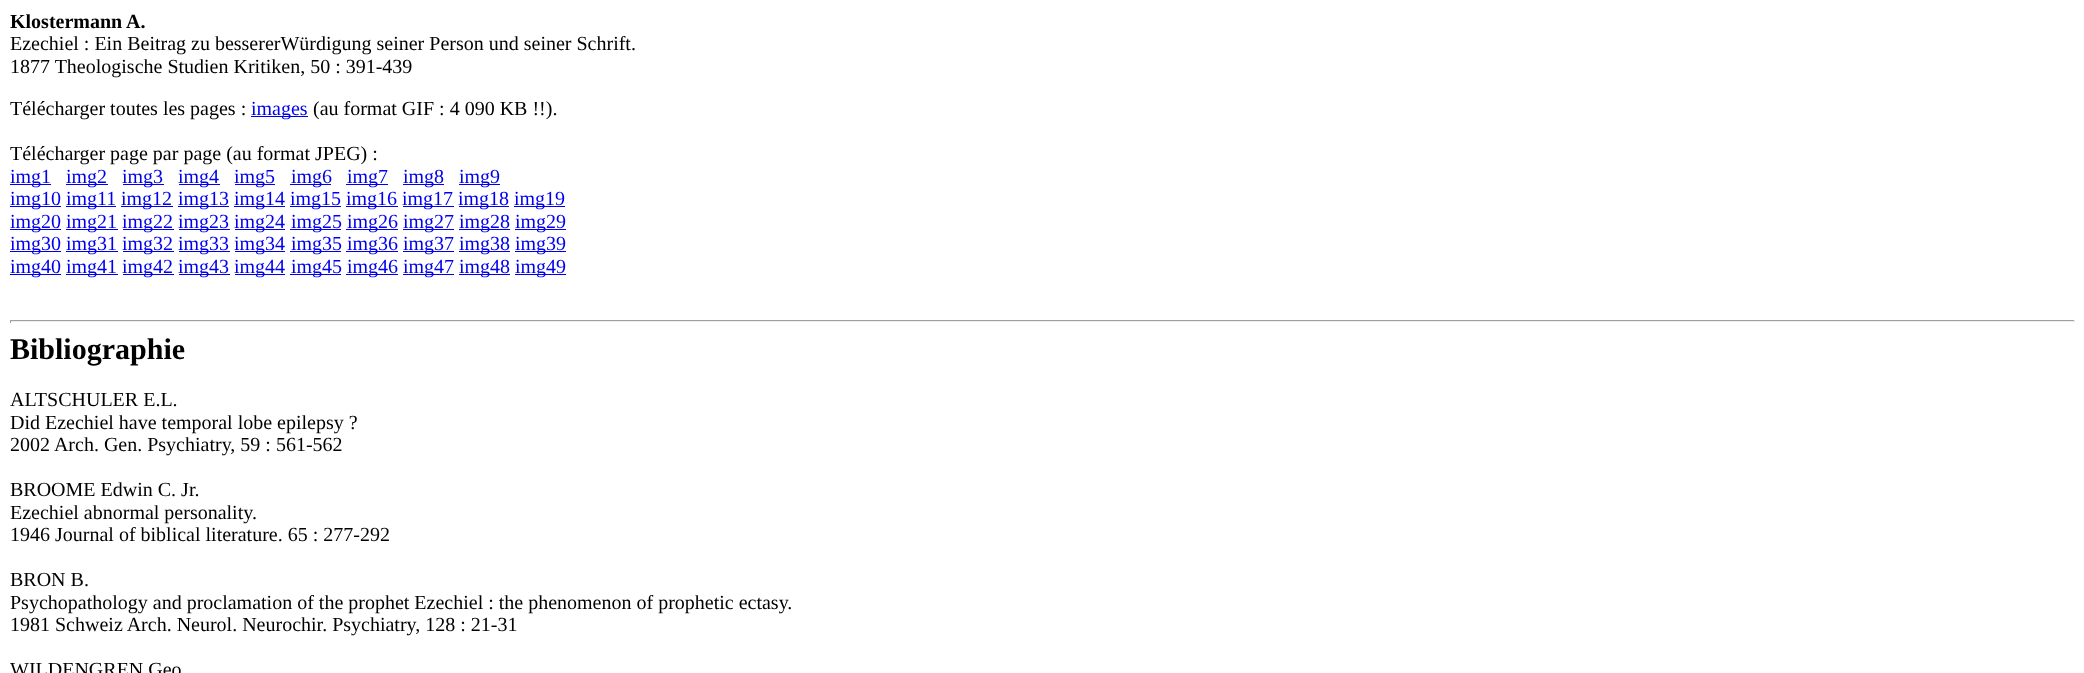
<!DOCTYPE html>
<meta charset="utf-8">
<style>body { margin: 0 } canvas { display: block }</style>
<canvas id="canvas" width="2084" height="673"></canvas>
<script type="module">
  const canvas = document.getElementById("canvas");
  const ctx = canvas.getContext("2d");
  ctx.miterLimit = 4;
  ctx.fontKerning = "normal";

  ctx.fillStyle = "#ffffff";
  ctx.fillRect(0, 0, 2084, 673);
  ctx.font = "bold 20px Liberation Serif";
  ctx.fillStyle = "#000000";
  ctx.fillText("Klostermann A.", 10, 28);
  ctx.font = "20px Liberation Serif";
  ctx.fillText("Ezechiel : Ein Beitrag zu bessererWürdigung seiner Person und seiner Schrift.", 10, 50);
  ctx.fillText("1877 Theologische Studien Kritiken, 50 : 391-439", 10, 73);
  ctx.fillText("Télécharger toutes les pages :", 10, 115);
  ctx.fillStyle = "#0000ee";
  ctx.fillRect(251, 116, 57, 1);
  ctx.fillText("images", 251, 115);
  ctx.fillStyle = "#000000";
  ctx.fillText("(au format GIF : 4 090 KB !!).", 313, 115);
  ctx.fillText("Télécharger page par page (au format JPEG) :", 10, 160);
  ctx.fillStyle = "#0000ee";
  ctx.fillRect(10, 184, 41, 1);
  ctx.fillText("img1", 10, 183);
  ctx.fillRect(66, 184, 42, 1);
  ctx.fillText("img2", 66, 183);
  ctx.fillRect(123, 184, 41, 1);
  ctx.fillText("img3", 122, 183);
  ctx.fillRect(179, 184, 41, 1);
  ctx.fillText("img4", 178, 183);
  ctx.fillRect(235, 184, 40, 1);
  ctx.fillText("img5", 234, 183);
  ctx.fillRect(290, 184, 41, 1);
  ctx.fillText("img6", 291, 183);
  ctx.fillRect(346, 184, 42, 1);
  ctx.fillText("img7", 347, 183);
  ctx.fillRect(403, 184, 41, 1);
  ctx.fillText("img8", 403, 183);
  ctx.fillRect(459, 184, 41, 1);
  ctx.fillText("img9", 459, 183);
  ctx.fillRect(10, 206, 51, 1);
  ctx.fillText("img10", 10, 205);
  ctx.fillRect(66, 206, 50, 1);
  ctx.fillText("img11", 66, 205);
  ctx.fillRect(121, 206, 52, 1);
  ctx.fillText("img12", 121, 205);
  ctx.fillRect(178, 206, 51, 1);
  ctx.fillText("img13", 178, 205);
  ctx.fillRect(234, 206, 51, 1);
  ctx.fillText("img14", 234, 205);
  ctx.fillRect(290, 206, 51, 1);
  ctx.fillText("img15", 290, 205);
  ctx.fillRect(346, 206, 52, 1);
  ctx.fillText("img16", 346, 205);
  ctx.fillRect(403, 206, 51, 1);
  ctx.fillText("img17", 402, 205);
  ctx.fillRect(459, 206, 50, 1);
  ctx.fillText("img18", 458, 205);
  ctx.fillRect(514, 206, 51, 1);
  ctx.fillText("img19", 514, 205);
  ctx.fillRect(10, 229, 51, 1);
  ctx.fillText("img20", 10, 228);
  ctx.fillRect(66, 229, 52, 1);
  ctx.fillText("img21", 66, 228);
  ctx.fillRect(123, 229, 51, 1);
  ctx.fillText("img22", 122, 228);
  ctx.fillRect(179, 229, 51, 1);
  ctx.fillText("img23", 178, 228);
  ctx.fillRect(235, 229, 50, 1);
  ctx.fillText("img24", 234, 228);
  ctx.fillRect(290, 229, 51, 1);
  ctx.fillText("img25", 291, 228);
  ctx.fillRect(346, 229, 52, 1);
  ctx.fillText("img26", 347, 228);
  ctx.fillRect(403, 229, 51, 1);
  ctx.fillText("img27", 403, 228);
  ctx.fillRect(459, 229, 51, 1);
  ctx.fillText("img28", 459, 228);
  ctx.fillRect(515, 229, 51, 1);
  ctx.fillText("img29", 515, 228);
  ctx.fillRect(10, 251, 51, 1);
  ctx.fillText("img30", 10, 250);
  ctx.fillRect(66, 251, 52, 1);
  ctx.fillText("img31", 66, 250);
  ctx.fillRect(123, 251, 51, 1);
  ctx.fillText("img32", 122, 250);
  ctx.fillRect(179, 251, 51, 1);
  ctx.fillText("img33", 178, 250);
  ctx.fillRect(235, 251, 50, 1);
  ctx.fillText("img34", 234, 250);
  ctx.fillRect(290, 251, 51, 1);
  ctx.fillText("img35", 291, 250);
  ctx.fillRect(346, 251, 52, 1);
  ctx.fillText("img36", 347, 250);
  ctx.fillRect(403, 251, 51, 1);
  ctx.fillText("img37", 403, 250);
  ctx.fillRect(459, 251, 51, 1);
  ctx.fillText("img38", 459, 250);
  ctx.fillRect(515, 251, 51, 1);
  ctx.fillText("img39", 515, 250);
  ctx.fillRect(10, 274, 51, 1);
  ctx.fillText("img40", 10, 273);
  ctx.fillRect(66, 274, 52, 1);
  ctx.fillText("img41", 66, 273);
  ctx.fillRect(123, 274, 51, 1);
  ctx.fillText("img42", 122, 273);
  ctx.fillRect(179, 274, 51, 1);
  ctx.fillText("img43", 178, 273);
  ctx.fillRect(235, 274, 50, 1);
  ctx.fillText("img44", 234, 273);
  ctx.fillRect(290, 274, 51, 1);
  ctx.fillText("img45", 291, 273);
  ctx.fillRect(346, 274, 52, 1);
  ctx.fillText("img46", 347, 273);
  ctx.fillRect(403, 274, 51, 1);
  ctx.fillText("img47", 403, 273);
  ctx.fillRect(459, 274, 51, 1);
  ctx.fillText("img48", 459, 273);
  ctx.fillRect(515, 274, 51, 1);
  ctx.fillText("img49", 515, 273);
  ctx.fillStyle = "#9f9f9f";
  ctx.fillRect(10, 320, 2065, 1);
  ctx.fillStyle = "#eeeeee";
  ctx.fillRect(2074, 320, 1, 3);
  ctx.fillRect(10, 321, 2065, 1);
  ctx.fillStyle = "#9f9f9f";
  ctx.fillRect(10, 320, 1, 3);
  ctx.font = "bold 30px Liberation Serif";
  ctx.fillStyle = "#000000";
  ctx.fillText("Bibliographie", 10, 359);
  ctx.font = "20px Liberation Serif";
  ctx.fillText("ALTSCHULER E.L.", 10, 406);
  ctx.fillText("Did Ezechiel have temporal lobe epilepsy ?", 10, 429);
  ctx.fillText("2002 Arch. Gen. Psychiatry, 59 : 561-562", 10, 451);
  ctx.fillText("BROOME Edwin C. Jr.", 10, 496);
  ctx.fillText("Ezechiel abnormal personality.", 10, 519);
  ctx.fillText("1946 Journal of biblical literature. 65 : 277-292", 10, 541);
  ctx.fillText("BRON B.", 10, 586);
  ctx.fillText("Psychopathology and proclamation of the prophet Ezechiel : the phenomenon of prophetic ectasy.", 10, 609);
  ctx.fillText("1981 Schweiz Arch. Neurol. Neurochir. Psychiatry, 128 : 21-31", 10, 631);
  ctx.fillText("WILDENGREN Geo", 10, 676);
</script>
